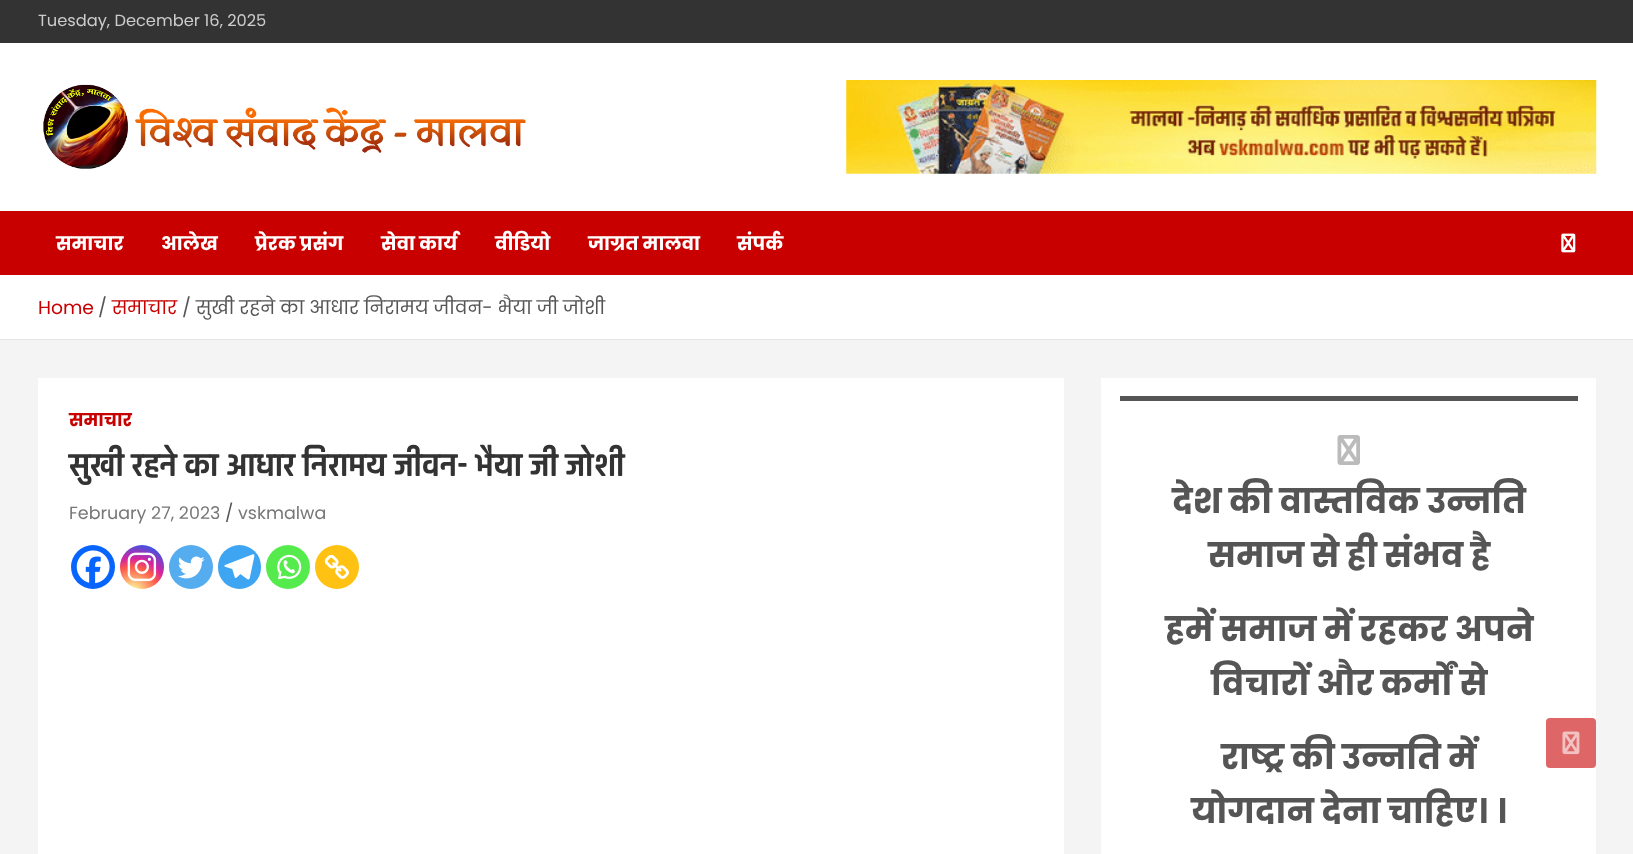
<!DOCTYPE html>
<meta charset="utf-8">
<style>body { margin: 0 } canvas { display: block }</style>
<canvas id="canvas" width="1633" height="854"></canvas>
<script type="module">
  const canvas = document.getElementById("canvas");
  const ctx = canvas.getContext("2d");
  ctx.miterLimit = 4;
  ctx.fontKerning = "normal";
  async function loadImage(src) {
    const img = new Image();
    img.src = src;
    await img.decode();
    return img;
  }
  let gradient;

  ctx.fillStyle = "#f4f4f4";
  ctx.fillRect(0, 0, 1633, 854);
  ctx.fillStyle = "#333333";
  ctx.fillRect(0, 0, 1633, 43);
  ctx.font = "16.25px Poppins";
  ctx.fillStyle = "#cccccc";
  ctx.fillText("Tuesday, December 16, 2025", 38, 26);
  ctx.fillStyle = "#ffffff";
  ctx.fillRect(0, 43, 1633, 168);
  ctx.drawImage(await loadImage("img1.png"), 43, 84, 483, 85);
  ctx.drawImage(await loadImage("img2.png"), 846, 80, 751, 94);
  ctx.fillStyle = "#c80000";
  ctx.fillRect(0, 211, 1633, 64);
  ctx.font = "bold 18.75px Poppins";
  ctx.fillStyle = "#ffffff";
  ctx.fillText("समाचार", 56, 250);
  ctx.fillText("आलेख", 161, 250);
  ctx.fillText("प्रेरक प्रसंग", 255, 250);
  ctx.fillText("सेवा कार्य", 381, 250);
  ctx.fillText("वीडियो", 495, 250);
  ctx.fillText("जाग्रत मालवा", 588, 250);
  ctx.fillText("संपर्क", 737, 250);
  ctx.drawImage(await loadImage("img3.png"), 1561, 233, 15, 20);
  ctx.fillRect(0, 275, 1633, 64);
  ctx.fillStyle = "#e6e6e6";
  ctx.fillRect(0, 339, 1633, 1);
  ctx.font = "18.75px Poppins";
  ctx.fillStyle = "#c80000";
  ctx.fillText("Home", 38, 314);
  ctx.fillStyle = "#555555";
  ctx.fillText("/", 98, 314);
  ctx.fillStyle = "#c80000";
  ctx.fillText("समाचार", 112, 314);
  ctx.fillStyle = "#555555";
  ctx.fillText("/ सुखी रहने का आधार निरामय जीवन- भैया जी जोशी", 182, 314);
  ctx.fillStyle = "#ffffff";
  ctx.fillRect(38, 378, 1026, 476);
  ctx.font = "bold 17.5px Poppins";
  ctx.fillStyle = "#c80000";
  ctx.fillText("समाचार", 69, 426);
  ctx.font = "bold 35px Rajdhani";
  ctx.fillStyle = "#333333";
  ctx.fillText("सुखी रहने का आधार निरामय जीवन- भैया जी जोशी", 69, 476);
  ctx.font = "17.5px Poppins";
  ctx.fillStyle = "#777777";
  ctx.fillText("February 27, 2023", 69, 519);
  ctx.fillStyle = "#555555";
  ctx.fillText("/", 225, 519);
  ctx.fillStyle = "#777777";
  ctx.fillText("vskmalwa", 238, 519);
  ctx.fillStyle = "#0765fe";
  ctx.beginPath();
  ctx.arc(93, 567, 22, 0, Math.PI * 2);
  ctx.fill();
  ctx.drawImage(await loadImage("img4.png"), 76, 550, 34, 34);
  gradient = ctx.createRadialGradient(133, 592, 0, 133, 592, 56);
  gradient.addColorStop(0, "#fdf497");
  gradient.addColorStop(0.05, "#fdf497");
  gradient.addColorStop(0.45, "#fd5949");
  gradient.addColorStop(0.6, "#d6249f");
  gradient.addColorStop(0.9, "#285aeb");
  ctx.fillStyle = gradient;
  ctx.beginPath();
  ctx.arc(142, 567, 22, 0, Math.PI * 2);
  ctx.fill();
  ctx.drawImage(await loadImage("img5.png"), 127, 552, 30, 30);
  ctx.fillStyle = "#55acee";
  ctx.beginPath();
  ctx.arc(191, 567, 22, 0, Math.PI * 2);
  ctx.fill();
  ctx.drawImage(await loadImage("img6.png"), 178, 556, 27, 23);
  ctx.fillStyle = "#3da5f1";
  ctx.beginPath();
  ctx.roundRect(218, 545, 43, 44, 21.5);
  ctx.fill();
  ctx.drawImage(await loadImage("img7.png"), 224, 554, 31, 26);
  ctx.fillStyle = "#55eb4c";
  ctx.beginPath();
  ctx.arc(288, 567, 22, 0, Math.PI * 2);
  ctx.fill();
  ctx.drawImage(await loadImage("img8.png"), 277, 554, 25, 26);
  ctx.fillStyle = "#ffc112";
  ctx.beginPath();
  ctx.arc(337, 567, 22, 0, Math.PI * 2);
  ctx.fill();
  ctx.drawImage(await loadImage("img9.png"), 324, 554, 25, 25);
  ctx.fillStyle = "#ffffff";
  ctx.fillRect(1101, 378, 495, 476);
  ctx.fillStyle = "#555555";
  ctx.fillRect(1120, 396, 458, 5);
  ctx.drawImage(await loadImage("img10.png"), 1337, 435, 23, 30);
  ctx.font = "bold 33.75px Poppins";
  ctx.fillText("देश की वास्तविक उन्नति", 1172, 513);
  ctx.fillText("समाज से ही संभव है", 1208, 567);
  ctx.fillText("हमें समाज में रहकर अपने", 1165, 641);
  ctx.fillText("विचारों और कर्मों से", 1211, 695);
  ctx.fillText("राष्ट्र की उन्नति में", 1221, 769);
  ctx.fillText("योगदान देना चाहिए। ।", 1191, 823);
  ctx.fillStyle = "#de6666";
  ctx.beginPath();
  ctx.roundRect(1546, 718, 50, 50, 4);
  ctx.fill();
  ctx.drawImage(await loadImage("img11.png"), 1562, 731, 18, 24);
</script>
